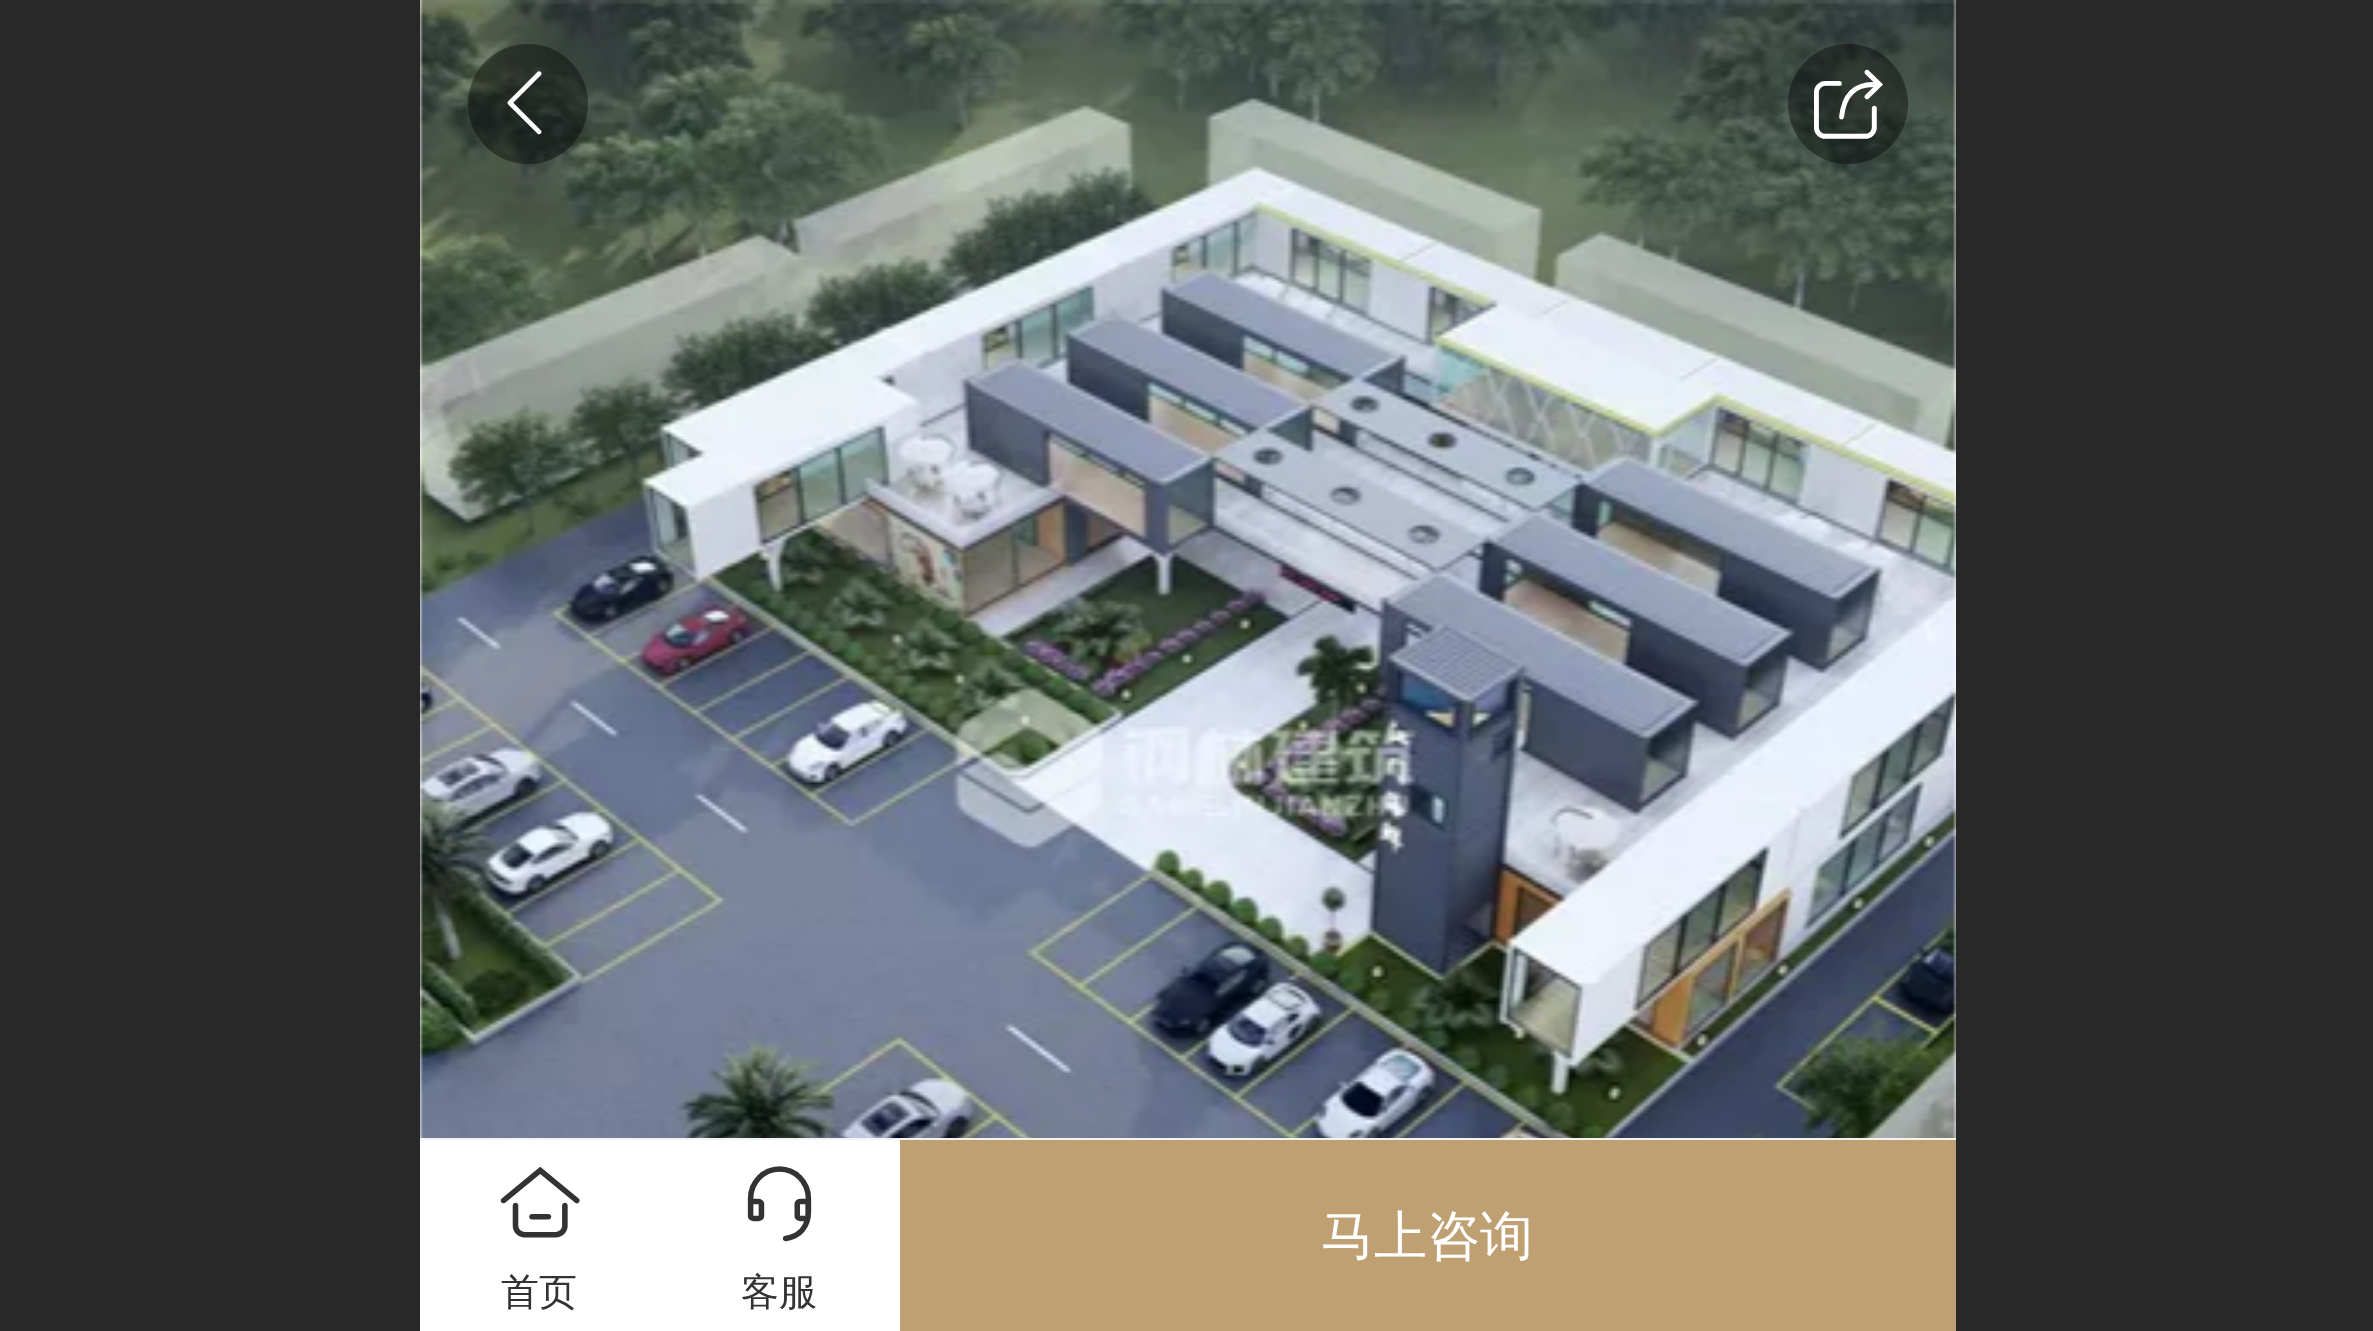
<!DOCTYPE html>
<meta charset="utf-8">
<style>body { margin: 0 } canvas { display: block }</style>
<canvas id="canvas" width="2373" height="1331"></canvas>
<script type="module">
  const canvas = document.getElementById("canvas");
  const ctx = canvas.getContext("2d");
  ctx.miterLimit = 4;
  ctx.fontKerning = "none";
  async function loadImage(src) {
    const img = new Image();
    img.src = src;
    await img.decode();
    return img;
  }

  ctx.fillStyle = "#ffffff";
  ctx.fillRect(0, 0, 2373, 1331);
  ctx.fillStyle = "#282828";
  ctx.fillRect(0, 0, 420, 1331);
  ctx.drawImage(await loadImage("img1.png"), 420, 0, 1536, 1138);
  ctx.fillStyle = "rgba(0, 0, 0, 0.4)";
  ctx.beginPath();
  ctx.arc(528, 104, 60, 0, Math.PI * 2);
  ctx.fill();
  ctx.font = "63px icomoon";
  ctx.fillStyle = "#ffffff";
  ctx.fillText("򰊔", 493, 129);
  ctx.fillStyle = "rgba(0, 0, 0, 0.4)";
  ctx.beginPath();
  ctx.arc(1848, 104, 60, 0, Math.PI * 2);
  ctx.fill();
  ctx.font = "69px icomoon";
  ctx.fillStyle = "#ffffff";
  ctx.fillText("򰌑", 1814, 133);
  ctx.fillStyle = "#f3f3f3";
  ctx.fillRect(420, 1138, 1536, 2);
  ctx.font = "79px icomoon";
  ctx.fillStyle = "#333333";
  ctx.fillText("򰌓", 500, 1235);
  ctx.font = "500 38px WenQuanYi Zen Hei";
  ctx.fillText("首页", 501, 1305);
  ctx.font = "75px icomoon";
  ctx.fillText("򰊘", 742, 1235);
  ctx.font = "500 38px WenQuanYi Zen Hei";
  ctx.fillText("客服", 741, 1305);
  ctx.fillStyle = "#bfa073";
  ctx.fillRect(900, 1140, 1056, 191);
  ctx.font = "500 53px WenQuanYi Zen Hei";
  ctx.fillStyle = "#ffffff";
  ctx.fillText("马上咨询", 1321, 1254);
  ctx.fillStyle = "#282828";
  ctx.fillRect(1956, 0, 417, 1331);
</script>
